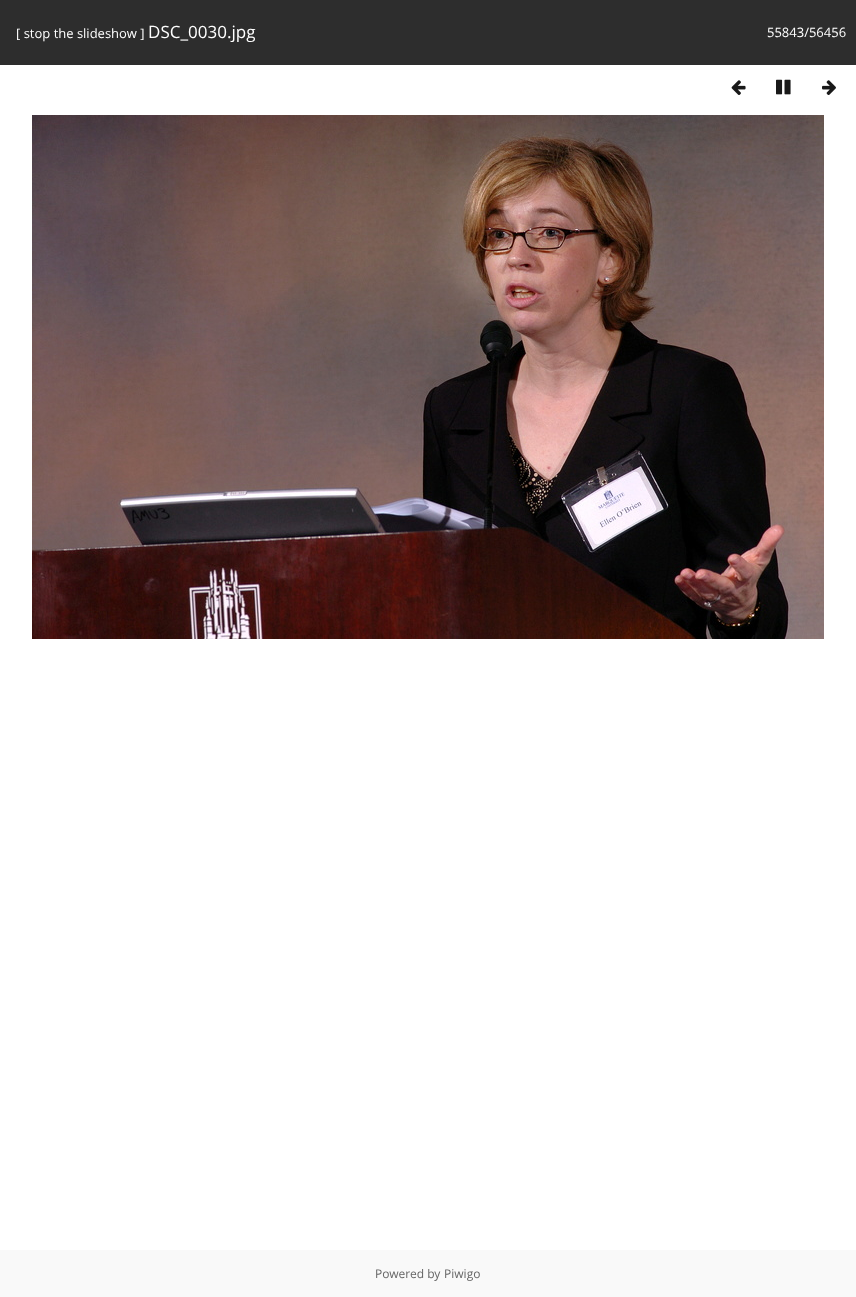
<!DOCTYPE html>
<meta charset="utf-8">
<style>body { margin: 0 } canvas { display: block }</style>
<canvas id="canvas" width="856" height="1297"></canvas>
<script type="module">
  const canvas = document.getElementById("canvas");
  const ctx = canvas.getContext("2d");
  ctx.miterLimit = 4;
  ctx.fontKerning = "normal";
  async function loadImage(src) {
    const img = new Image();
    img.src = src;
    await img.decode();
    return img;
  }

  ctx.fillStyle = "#ffffff";
  ctx.fillRect(0, 0, 856, 1297);
  ctx.fillStyle = "#2d2d2d";
  ctx.fillRect(0, 0, 856, 65);
  ctx.font = "13px Open Sans";
  ctx.fillStyle = "#ffffff";
  ctx.fillText("[ stop the slideshow ]", 16, 38);
  ctx.font = "17px Open Sans";
  ctx.fillText("DSC_0030.jpg", 148, 38);
  ctx.font = "13px Open Sans";
  ctx.fillText("55843/56456", 767, 37);
  ctx.drawImage(await loadImage("img1.png"), 731, 80, 15, 15);
  ctx.drawImage(await loadImage("img2.png"), 776, 79, 15, 16);
  ctx.drawImage(await loadImage("img3.png"), 822, 80, 14, 15);
  ctx.drawImage(await loadImage("img4.png"), 32, 115, 792, 524);
  ctx.fillStyle = "#f9f9f9";
  ctx.fillRect(0, 1250, 856, 47);
  ctx.font = "12px Open Sans";
  ctx.fillStyle = "#666666";
  ctx.fillText("Powered by", 375, 1278);
  ctx.fillText("Piwigo", 444, 1278);
</script>
